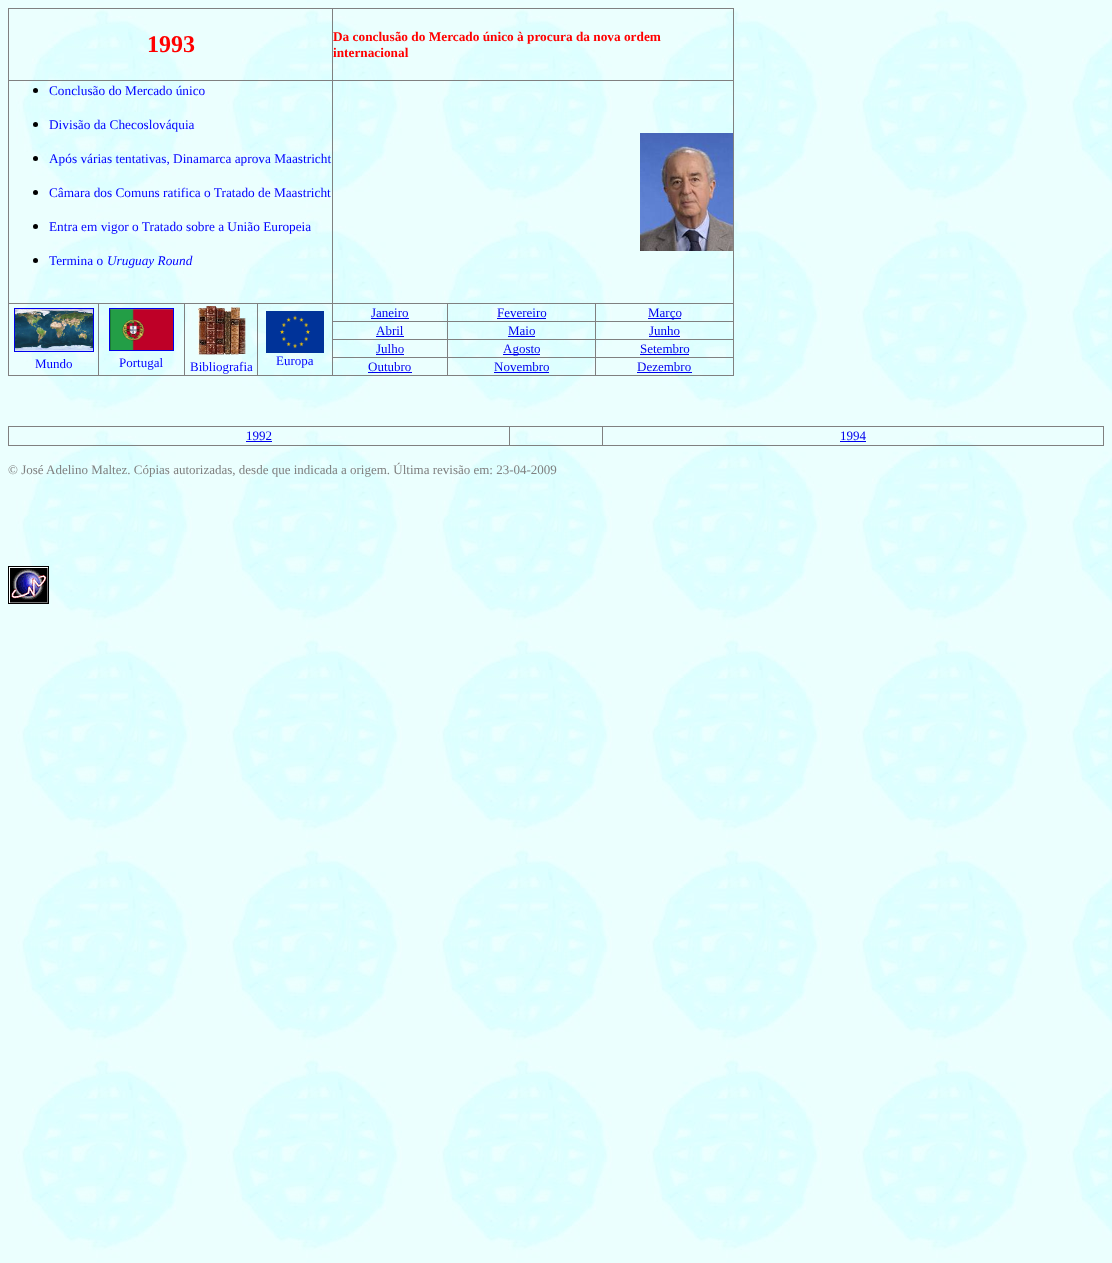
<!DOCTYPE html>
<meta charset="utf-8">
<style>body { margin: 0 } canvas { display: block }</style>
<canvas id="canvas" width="1112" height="1263"></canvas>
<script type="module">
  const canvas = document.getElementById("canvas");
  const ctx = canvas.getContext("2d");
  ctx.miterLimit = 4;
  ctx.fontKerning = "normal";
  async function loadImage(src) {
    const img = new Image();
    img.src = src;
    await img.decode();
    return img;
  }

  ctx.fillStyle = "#ffffff";
  ctx.fillRect(0, 0, 1112, 1263);
  ctx.drawImage(await loadImage("img1.png"), 0, 0, 1112, 1263);
  ctx.fillStyle = "#808080";
  ctx.fillRect(8, 8, 726, 1);
  ctx.fillRect(733, 8, 1, 368);
  ctx.fillRect(8, 375, 726, 1);
  ctx.fillRect(8, 8, 1, 368);
  ctx.font = "bold 24px Liberation Serif";
  ctx.fillStyle = "#ff0000";
  ctx.fillText("1993", 147, 52);
  ctx.fillStyle = "#808080";
  ctx.fillRect(332, 80, 402, 1);
  ctx.fillRect(595, 303, 139, 1);
  ctx.fillRect(595, 321, 139, 1);
  ctx.fillRect(595, 339, 139, 1);
  ctx.fillRect(595, 357, 139, 1);
  ctx.fillRect(595, 357, 1, 19);
  ctx.fillRect(447, 357, 149, 1);
  ctx.fillRect(595, 339, 1, 19);
  ctx.fillRect(447, 339, 149, 1);
  ctx.fillRect(595, 321, 1, 19);
  ctx.fillRect(447, 321, 149, 1);
  ctx.fillRect(595, 303, 1, 19);
  ctx.fillRect(447, 303, 149, 1);
  ctx.fillRect(447, 357, 1, 19);
  ctx.fillRect(332, 357, 116, 1);
  ctx.fillRect(447, 339, 1, 19);
  ctx.fillRect(332, 339, 116, 1);
  ctx.fillRect(447, 321, 1, 19);
  ctx.fillRect(332, 321, 116, 1);
  ctx.fillRect(447, 303, 1, 19);
  ctx.fillRect(332, 303, 116, 1);
  ctx.fillRect(332, 357, 1, 19);
  ctx.fillRect(332, 339, 1, 19);
  ctx.fillRect(332, 321, 1, 19);
  ctx.fillRect(332, 303, 1, 19);
  ctx.fillRect(257, 303, 76, 1);
  ctx.fillRect(332, 80, 1, 224);
  ctx.fillRect(8, 80, 325, 1);
  ctx.fillRect(332, 8, 1, 73);
  ctx.font = "bold 13.3px Liberation Serif";
  ctx.fillStyle = "#ff0000";
  ctx.fillText("Da conclusão do Mercado único à procura da nova ordem", 333, 41);
  ctx.fillText("internacional", 333, 57);
  ctx.fillStyle = "#000000";
  ctx.beginPath();
  ctx.arc(35.5, 90.5, 2.5, 0, Math.PI * 2);
  ctx.fill();
  ctx.font = "13.3px Liberation Serif";
  ctx.fillStyle = "#0000ff";
  ctx.fillText("Conclusão do Mercado único", 49, 95);
  ctx.fillStyle = "#000000";
  ctx.beginPath();
  ctx.arc(35.5, 124.5, 2.5, 0, Math.PI * 2);
  ctx.fill();
  ctx.fillStyle = "#0000ff";
  ctx.fillText("Divisão da Checoslováquia", 49, 129);
  ctx.fillStyle = "#000000";
  ctx.beginPath();
  ctx.arc(35.5, 158.5, 2.5, 0, Math.PI * 2);
  ctx.fill();
  ctx.fillStyle = "#0000ff";
  ctx.fillText("Após várias tentativas, Dinamarca aprova Maastricht", 49, 163);
  ctx.fillStyle = "#000000";
  ctx.beginPath();
  ctx.arc(35.5, 192.5, 2.5, 0, Math.PI * 2);
  ctx.fill();
  ctx.fillStyle = "#0000ff";
  ctx.fillText("Câmara dos Comuns ratifica o Tratado de Maastricht", 49, 197);
  ctx.fillStyle = "#000000";
  ctx.beginPath();
  ctx.arc(35.5, 226.5, 2.5, 0, Math.PI * 2);
  ctx.fill();
  ctx.fillStyle = "#0000ff";
  ctx.fillText("Entra em vigor o Tratado sobre a União Europeia", 49, 231);
  ctx.fillStyle = "#000000";
  ctx.beginPath();
  ctx.arc(35.5, 260.5, 2.5, 0, Math.PI * 2);
  ctx.fill();
  ctx.fillStyle = "#0000ff";
  ctx.fillText("Termina o", 49, 265);
  ctx.font = "italic 13.3px Liberation Serif";
  ctx.fillText("Uruguay Round", 107, 265);
  ctx.drawImage(await loadImage("img2.png"), 640, 133, 93, 118);
  ctx.font = "13px Liberation Serif";
  ctx.fillStyle = "#0000ee";
  ctx.fillText("Janeiro", 371, 317);
  ctx.fillRect(371, 318, 38, 1);
  ctx.fillText("Fevereiro", 497, 317);
  ctx.fillRect(497, 318, 49, 1);
  ctx.fillRect(648, 318, 33, 1);
  ctx.fillText("Março", 648, 317);
  ctx.fillStyle = "#808080";
  ctx.fillRect(257, 303, 1, 73);
  ctx.fillRect(184, 303, 74, 1);
  ctx.fillRect(184, 303, 1, 73);
  ctx.fillRect(98, 303, 87, 1);
  ctx.fillRect(98, 303, 1, 73);
  ctx.fillRect(8, 303, 91, 1);
  ctx.strokeStyle = "#0000ee";
  ctx.strokeRect(14.5, 308.5, 79, 43);
  ctx.drawImage(await loadImage("img3.png"), 15, 309, 78, 42);
  ctx.fillStyle = "#0000ff";
  ctx.fillText("Mundo", 35, 368);
  ctx.strokeRect(109.5, 308.5, 64, 42);
  ctx.drawImage(await loadImage("img4.png"), 110, 309, 63, 41);
  ctx.fillText("Portugal", 119, 367);
  ctx.drawImage(await loadImage("img5.png"), 198, 306, 48, 49);
  ctx.fillText("Bibliografia", 190, 371);
  ctx.drawImage(await loadImage("img6.png"), 266, 311, 58, 42);
  ctx.fillText("Europa", 276, 365);
  ctx.fillStyle = "#0000ee";
  ctx.fillText("Abril", 376, 335);
  ctx.fillRect(376, 336, 28, 1);
  ctx.fillText("Maio", 508, 335);
  ctx.fillRect(508, 336, 27, 1);
  ctx.fillText("Junho", 649, 335);
  ctx.fillRect(649, 336, 31, 1);
  ctx.fillText("Julho", 376, 353);
  ctx.fillRect(376, 354, 28, 1);
  ctx.fillRect(503, 354, 37, 1);
  ctx.fillText("Agosto", 503, 353);
  ctx.fillText("Setembro", 640, 353);
  ctx.fillRect(640, 354, 49, 1);
  ctx.fillText("Outubro", 368, 371);
  ctx.fillRect(368, 372, 44, 1);
  ctx.fillText("Novembro", 494, 371);
  ctx.fillRect(494, 372, 55, 1);
  ctx.fillText("Dezembro", 637, 371);
  ctx.fillRect(637, 372, 55, 1);
  ctx.fillStyle = "#808080";
  ctx.fillRect(8, 426, 1096, 1);
  ctx.fillRect(1103, 426, 1, 20);
  ctx.fillRect(8, 445, 1096, 1);
  ctx.fillRect(8, 426, 1, 20);
  ctx.fillStyle = "#0000ee";
  ctx.fillText("1992", 246, 440);
  ctx.fillRect(246, 441, 26, 1);
  ctx.fillStyle = "#808080";
  ctx.fillRect(509, 426, 1, 20);
  ctx.fillRect(602, 426, 1, 20);
  ctx.fillStyle = "#0000ee";
  ctx.fillText("1994", 840, 440);
  ctx.fillRect(840, 441, 26, 1);
  ctx.fillStyle = "#808080";
  ctx.fillText("© José Adelino Maltez. Cópias autorizadas, desde que indicada a origem. Última revisão em: 23-04-2009", 8, 474);
  ctx.drawImage(await loadImage("img7.png"), 8, 566, 41, 38);
</script>
